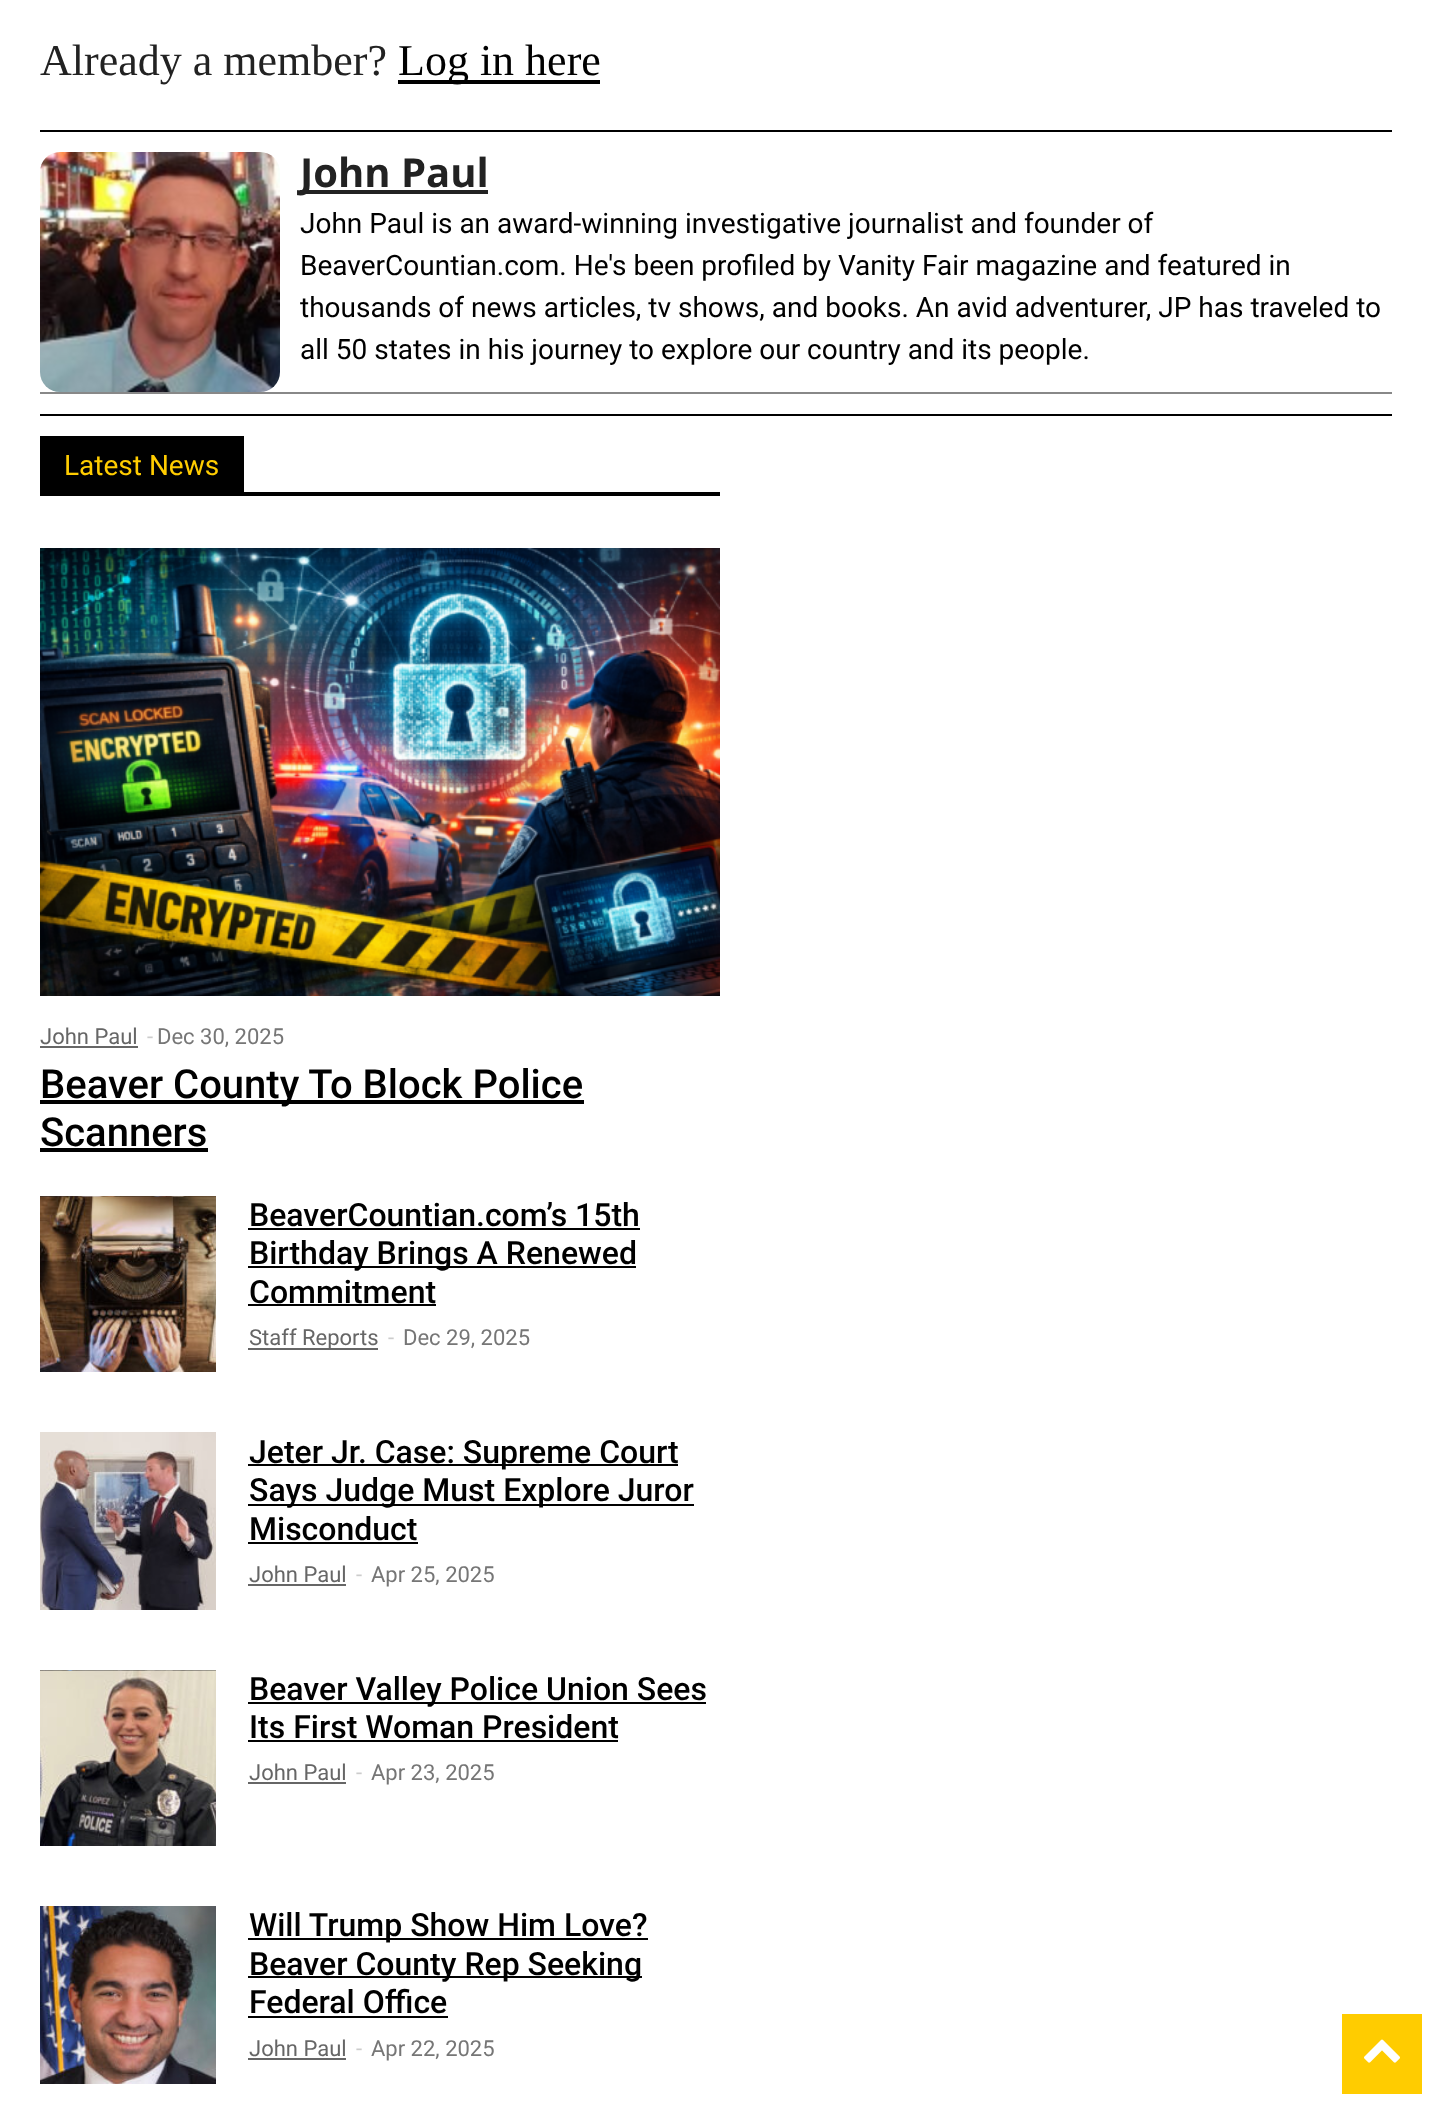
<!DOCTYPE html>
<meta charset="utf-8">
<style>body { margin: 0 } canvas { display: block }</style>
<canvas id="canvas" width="1432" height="2101"></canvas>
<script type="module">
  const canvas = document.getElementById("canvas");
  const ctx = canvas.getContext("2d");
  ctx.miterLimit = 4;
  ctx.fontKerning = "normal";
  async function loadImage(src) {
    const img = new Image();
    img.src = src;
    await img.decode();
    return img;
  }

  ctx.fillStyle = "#ffffff";
  ctx.fillRect(0, 0, 1432, 2101);
  ctx.font = "44px Liberation Serif";
  ctx.fillStyle = "#222222";
  ctx.fillText("Already a member?", 40, 75);
  ctx.fillStyle = "#000000";
  ctx.fillRect(398, 80, 202, 4);
  ctx.fillText("Log in here", 398, 75);
  ctx.fillRect(40, 130, 1352, 2);
  ctx.fillStyle = "#888888";
  ctx.fillRect(40, 392, 1352, 2);
  ctx.drawImage(await loadImage("img1.png"), 40, 152, 240, 240);
  ctx.fillStyle = "#222222";
  ctx.fillRect(300, 190, 188, 4);
  ctx.font = "bold 40px Open Sans";
  ctx.fillText("John Paul", 300, 187);
  ctx.font = "28px Roboto";
  ctx.fillStyle = "#000000";
  ctx.fillText("John Paul is an award-winning investigative journalist and founder of", 300, 233);
  ctx.fillText("BeaverCountian.com. He's been profiled by Vanity Fair magazine and featured in", 300, 275);
  ctx.fillText("thousands of news articles, tv shows, and books. An avid adventurer, JP has traveled to", 300, 317);
  ctx.fillText("all 50 states in his journey to explore our country and its people.", 300, 359);
  ctx.fillRect(40, 414, 1352, 2);
  ctx.fillRect(40, 492, 680, 4);
  ctx.fillRect(40, 436, 204, 56);
  ctx.fillStyle = "#ffcc00";
  ctx.fillText("Latest News", 64, 475);
  ctx.drawImage(await loadImage("img2.png"), 40, 548, 680, 448);
  ctx.font = "22px Roboto";
  ctx.fillStyle = "#666666";
  ctx.fillText("John Paul", 40, 1044);
  ctx.fillRect(40, 1046, 98, 2);
  ctx.fillStyle = "#cccccc";
  ctx.fillText("-", 147, 1044);
  ctx.fillStyle = "#767676";
  ctx.fillText("Dec 30, 2025", 157, 1044);
  ctx.fillStyle = "#000000";
  ctx.fillRect(40, 1100, 544, 4);
  ctx.font = "500 40px Roboto";
  ctx.fillText("Beaver County To Block Police", 40, 1098);
  ctx.fillText("Scanners", 40, 1146);
  ctx.fillRect(40, 1148, 168, 4);
  ctx.drawImage(await loadImage("img3.png"), 40, 1196, 176, 176);
  ctx.font = "500 32px Roboto";
  ctx.fillText("BeaverCountian.com’s 15th", 249, 1226);
  ctx.fillRect(248, 1228, 392, 2);
  ctx.fillRect(248, 1266, 388, 2);
  ctx.fillText("Birthday Brings A Renewed", 249, 1264);
  ctx.fillText("Commitment", 249, 1303);
  ctx.fillRect(248, 1304, 188, 2);
  ctx.fillStyle = "#666666";
  ctx.fillRect(248, 1348, 130, 2);
  ctx.font = "22px Roboto";
  ctx.fillText("Staff Reports", 249, 1345);
  ctx.fillStyle = "#cccccc";
  ctx.fillText("-", 388, 1345);
  ctx.fillStyle = "#767676";
  ctx.fillText("Dec 29, 2025", 403, 1345);
  ctx.drawImage(await loadImage("img4.png"), 40, 1432, 176, 178);
  ctx.fillStyle = "#000000";
  ctx.fillRect(248, 1464, 430, 2);
  ctx.font = "500 32px Roboto";
  ctx.fillText("Jeter Jr. Case: Supreme Court", 249, 1463);
  ctx.fillRect(248, 1504, 446, 2);
  ctx.fillText("Says Judge Must Explore Juror", 249, 1501);
  ctx.fillText("Misconduct", 249, 1540);
  ctx.fillRect(248, 1542, 170, 2);
  ctx.font = "22px Roboto";
  ctx.fillStyle = "#666666";
  ctx.fillText("John Paul", 249, 1582);
  ctx.fillRect(248, 1584, 98, 2);
  ctx.fillStyle = "#cccccc";
  ctx.fillText("-", 356, 1582);
  ctx.fillStyle = "#767676";
  ctx.fillText("Apr 25, 2025", 371, 1582);
  ctx.drawImage(await loadImage("img5.png"), 40, 1670, 176, 176);
  ctx.fillStyle = "#000000";
  ctx.fillRect(248, 1702, 458, 2);
  ctx.font = "500 32px Roboto";
  ctx.fillText("Beaver Valley Police Union Sees", 249, 1700);
  ctx.fillText("Its First Woman President", 249, 1738);
  ctx.fillRect(248, 1740, 370, 2);
  ctx.font = "22px Roboto";
  ctx.fillStyle = "#666666";
  ctx.fillText("John Paul", 249, 1780);
  ctx.fillRect(248, 1782, 98, 2);
  ctx.fillStyle = "#cccccc";
  ctx.fillText("-", 356, 1780);
  ctx.fillStyle = "#767676";
  ctx.fillText("Apr 23, 2025", 371, 1780);
  ctx.drawImage(await loadImage("img6.png"), 40, 1906, 176, 178);
  ctx.fillStyle = "#000000";
  ctx.fillRect(248, 1938, 400, 2);
  ctx.font = "500 32px Roboto";
  ctx.fillText("Will Trump Show Him Love?", 249, 1936);
  ctx.fillRect(248, 1976, 394, 2);
  ctx.fillText("Beaver County Rep Seeking", 249, 1975);
  ctx.fillText("Federal Office", 249, 2013);
  ctx.fillRect(248, 2016, 200, 2);
  ctx.font = "22px Roboto";
  ctx.fillStyle = "#666666";
  ctx.fillText("John Paul", 249, 2056);
  ctx.fillRect(248, 2058, 98, 2);
  ctx.fillStyle = "#cccccc";
  ctx.fillText("-", 356, 2056);
  ctx.fillStyle = "#767676";
  ctx.fillText("Apr 22, 2025", 371, 2056);
  ctx.fillStyle = "#ffcc00";
  ctx.fillRect(1342, 2014, 80, 80);
  ctx.drawImage(await loadImage("img7.png"), 1364, 2039, 36, 24);
</script>
